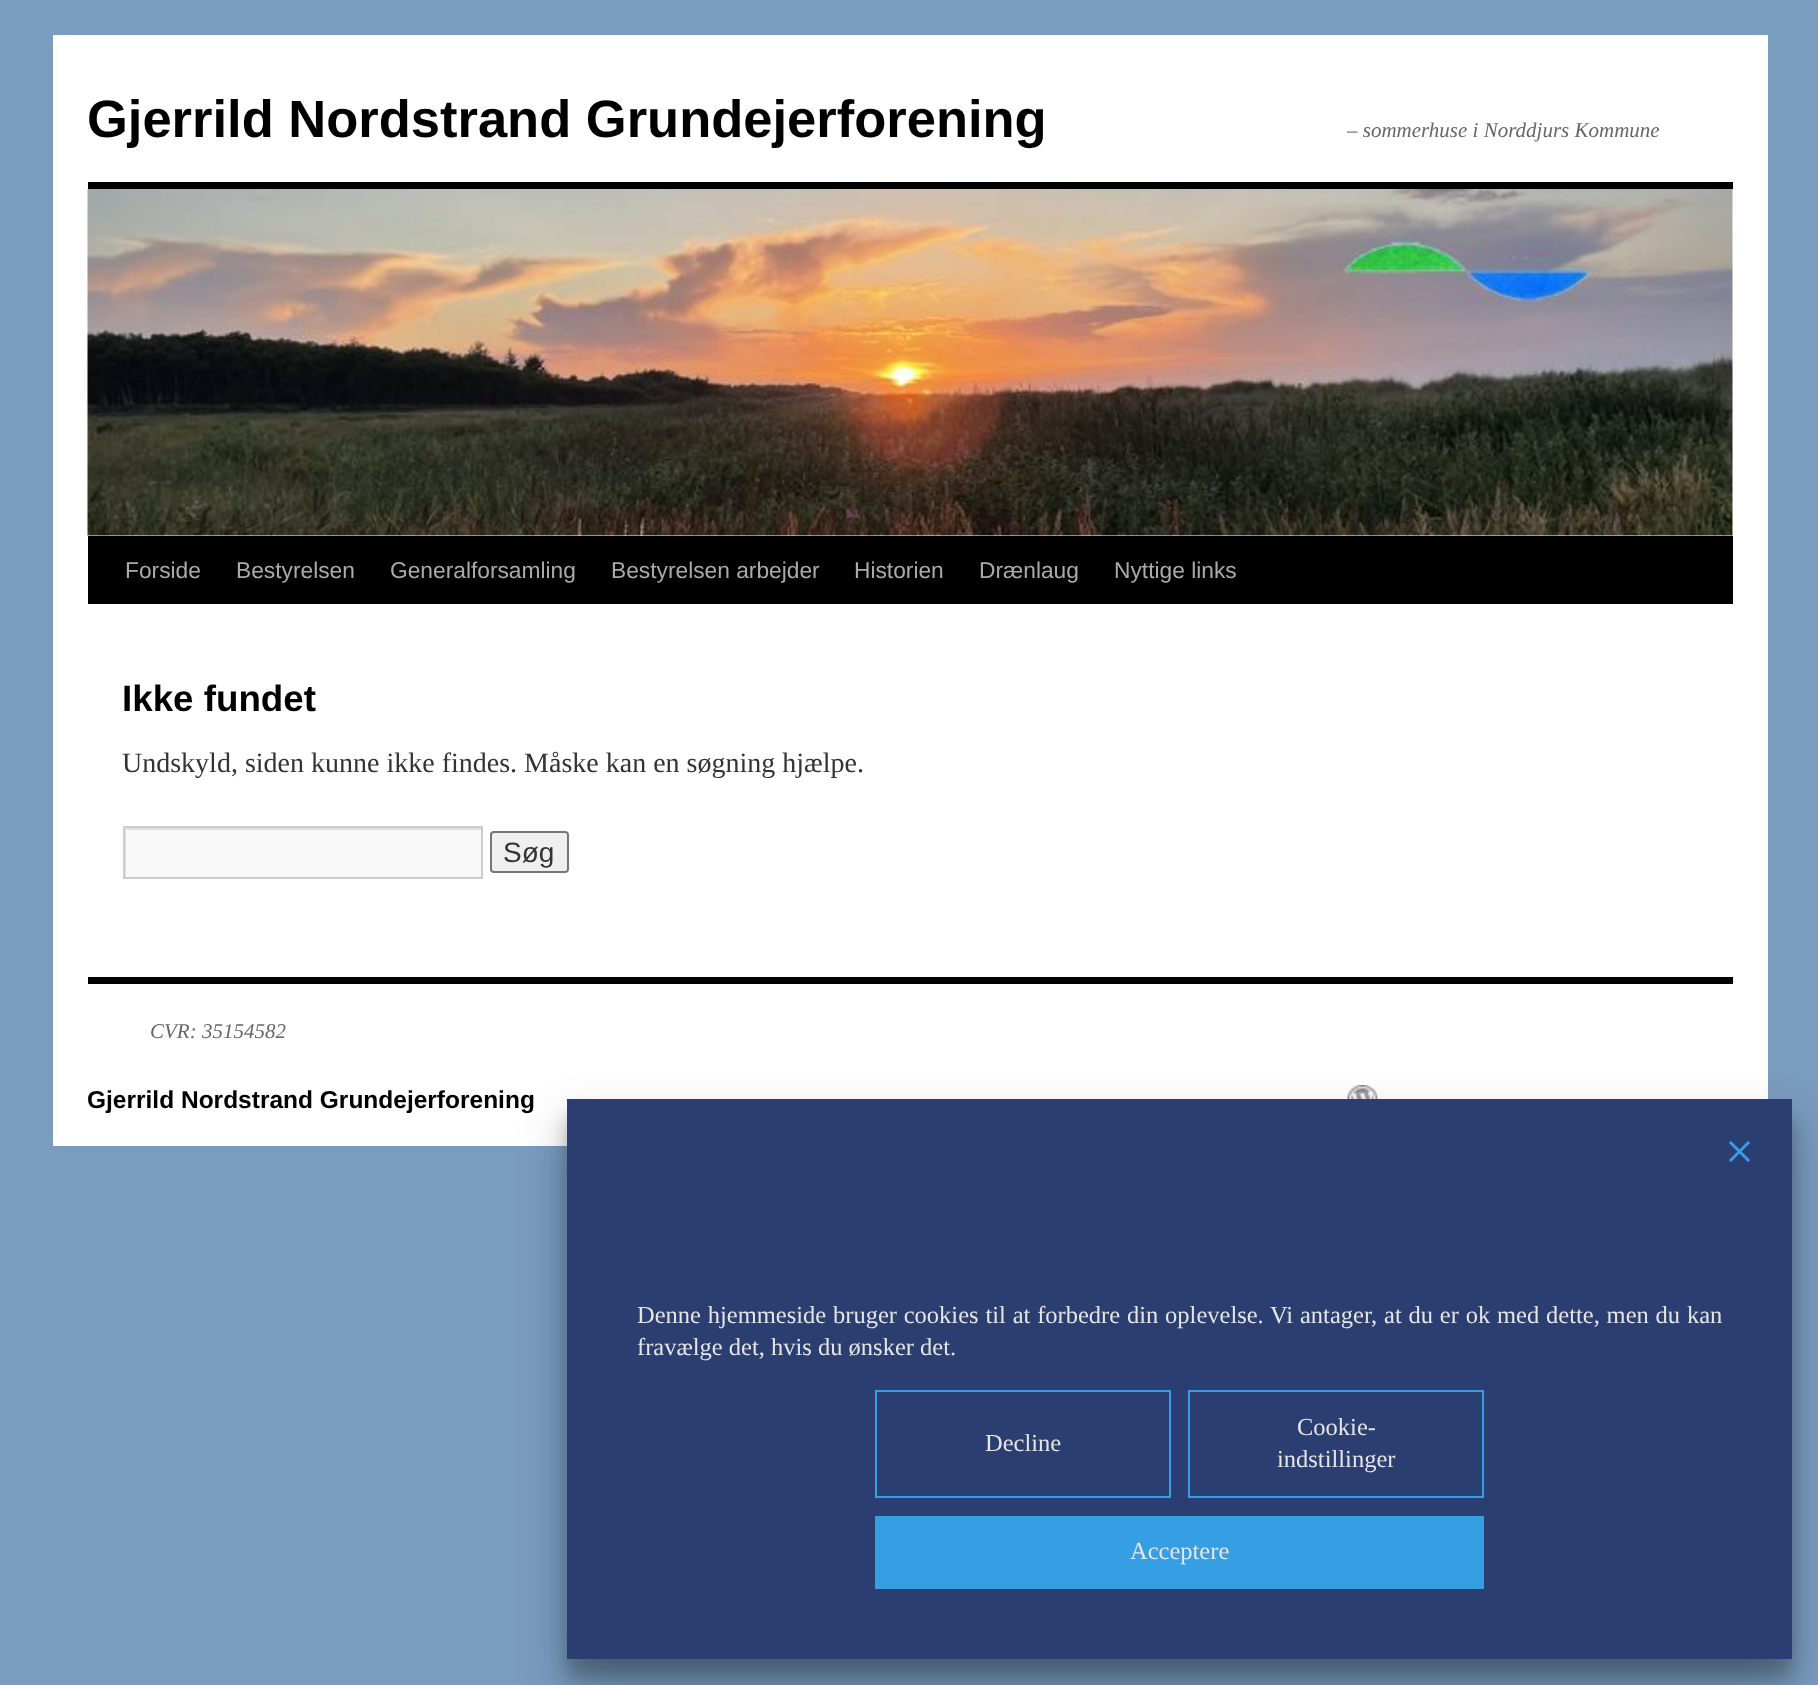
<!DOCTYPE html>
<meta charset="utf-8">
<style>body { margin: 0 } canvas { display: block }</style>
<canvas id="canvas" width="1818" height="1685"></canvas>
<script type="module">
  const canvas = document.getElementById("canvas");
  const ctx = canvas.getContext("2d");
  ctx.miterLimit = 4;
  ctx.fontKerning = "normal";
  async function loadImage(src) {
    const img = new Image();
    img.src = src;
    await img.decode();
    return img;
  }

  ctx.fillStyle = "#7a9cbf";
  ctx.fillRect(0, 0, 1818, 1685);
  ctx.fillStyle = "#ffffff";
  ctx.fillRect(53, 35, 1715, 1111);
  ctx.font = "bold 52.5px Liberation Sans";
  ctx.fillStyle = "#000000";
  ctx.fillText("Gjerrild Nordstrand Grundejerforening", 87, 137);
  ctx.font = "italic 21px Liberation Serif";
  ctx.fillStyle = "#666666";
  ctx.fillText("– sommerhuse i Norddjurs Kommune", 1347, 137);
  ctx.fillStyle = "#000000";
  ctx.fillRect(88, 182, 1645, 7);
  ctx.fillRect(88, 536, 1645, 68);
  ctx.drawImage(await loadImage("img1.png"), 87, 189, 1646, 347);
  ctx.font = "22.75px Liberation Sans";
  ctx.fillStyle = "#aaaaaa";
  ctx.fillText("Forside", 125, 578);
  ctx.fillText("Bestyrelsen", 236, 578);
  ctx.fillText("Generalforsamling", 390, 578);
  ctx.fillText("Bestyrelsen arbejder", 611, 578);
  ctx.fillText("Historien", 854, 578);
  ctx.fillText("Drænlaug", 979, 578);
  ctx.fillText("Nyttige links", 1114, 578);
  ctx.font = "bold 36.75px Liberation Sans";
  ctx.fillStyle = "#000000";
  ctx.fillText("Ikke fundet", 122, 711);
  ctx.font = "28px Liberation Serif";
  ctx.fillStyle = "#333333";
  ctx.fillText("Undskyld, siden kunne ikke findes. Måske kan en søgning hjælpe.", 122, 772);
  ctx.fillStyle = "#f9f9f9";
  ctx.fillRect(126, 830, 355, 47);
  ctx.save();
  ctx.beginPath();
  ctx.rect(124, 828, 357, 49);
  ctx.clip();
  ctx.fillStyle = "#e0e0e0";
  ctx.beginPath();
  ctx.moveTo(-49, 654);
  ctx.lineTo(654, 654);
  ctx.lineTo(654, 1050);
  ctx.lineTo(-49, 1050);
  ctx.closePath();
  ctx.moveTo(126, 830);
  ctx.lineTo(483, 830);
  ctx.lineTo(483, 878);
  ctx.lineTo(126, 878);
  ctx.closePath();
  ctx.fill("evenodd");
  ctx.restore();
  ctx.strokeStyle = "#cccccc";
  ctx.lineWidth = 2;
  ctx.strokeRect(124, 827, 358, 51);
  ctx.fillStyle = "#efefef";
  ctx.beginPath();
  ctx.roundRect(491, 832, 77, 40, 3);
  ctx.fill();
  ctx.strokeStyle = "#767676";
  ctx.stroke();
  ctx.font = "28px Liberation Sans";
  ctx.fillStyle = "#333333";
  ctx.fillText("Søg", 503, 862);
  ctx.fillStyle = "#000000";
  ctx.fillRect(88, 977, 1645, 7);
  ctx.font = "italic 21px Liberation Serif";
  ctx.fillStyle = "#666666";
  ctx.fillText("CVR: 35154582", 150, 1038);
  ctx.save();
  ctx.beginPath();
  ctx.rect(88, 984, 1645, 162);
  ctx.clip();
  ctx.font = "bold 24.5px Liberation Sans";
  ctx.fillStyle = "#000000";
  ctx.fillText("Gjerrild Nordstrand Grundejerforening", 87, 1108);
  ctx.restore();
  ctx.drawImage(await loadImage("img2.png"), 1347, 1085, 31, 14);
  ctx.fillStyle = "rgba(0, 0, 0, 0.22)";
  ctx.filter = "blur(9px)";
  ctx.beginPath();
  ctx.rect(567, 1117, 1225, 560);
  ctx.fill();
  ctx.filter = "none";
  ctx.fillStyle = "rgba(0, 0, 0, 0.25)";
  ctx.filter = "blur(24.5px)";
  ctx.beginPath();
  ctx.rect(567, 1124, 1225, 560);
  ctx.fill();
  ctx.filter = "none";
  ctx.fillStyle = "#2a3e71";
  ctx.fillRect(567, 1099, 1225, 560);
  ctx.drawImage(await loadImage("img3.png"), 1729, 1141, 21, 21);
  ctx.wordSpacing = "0.7px";
  ctx.font = "24.5px Liberation Serif";
  ctx.fillStyle = "#e5e5e5";
  ctx.fillText("Denne hjemmeside bruger cookies til at forbedre din oplevelse. Vi antager, at du er ok med dette, men du kan", 637, 1323);
  ctx.wordSpacing = "0px";
  ctx.fillText("fravælge det, hvis du ønsker det.", 637, 1355);
  ctx.strokeStyle = "#369ee3";
  ctx.strokeRect(876, 1391, 294, 106);
  ctx.fillText("Decline", 985, 1451);
  ctx.strokeRect(1189, 1391, 294, 106);
  ctx.fillText("Cookie-", 1297, 1435);
  ctx.fillText("indstillinger", 1277, 1467);
  ctx.fillStyle = "#369ee3";
  ctx.fillRect(875, 1516, 609, 73);
  ctx.fillStyle = "#e5e5e5";
  ctx.fillText("Acceptere", 1130, 1559);
</script>
